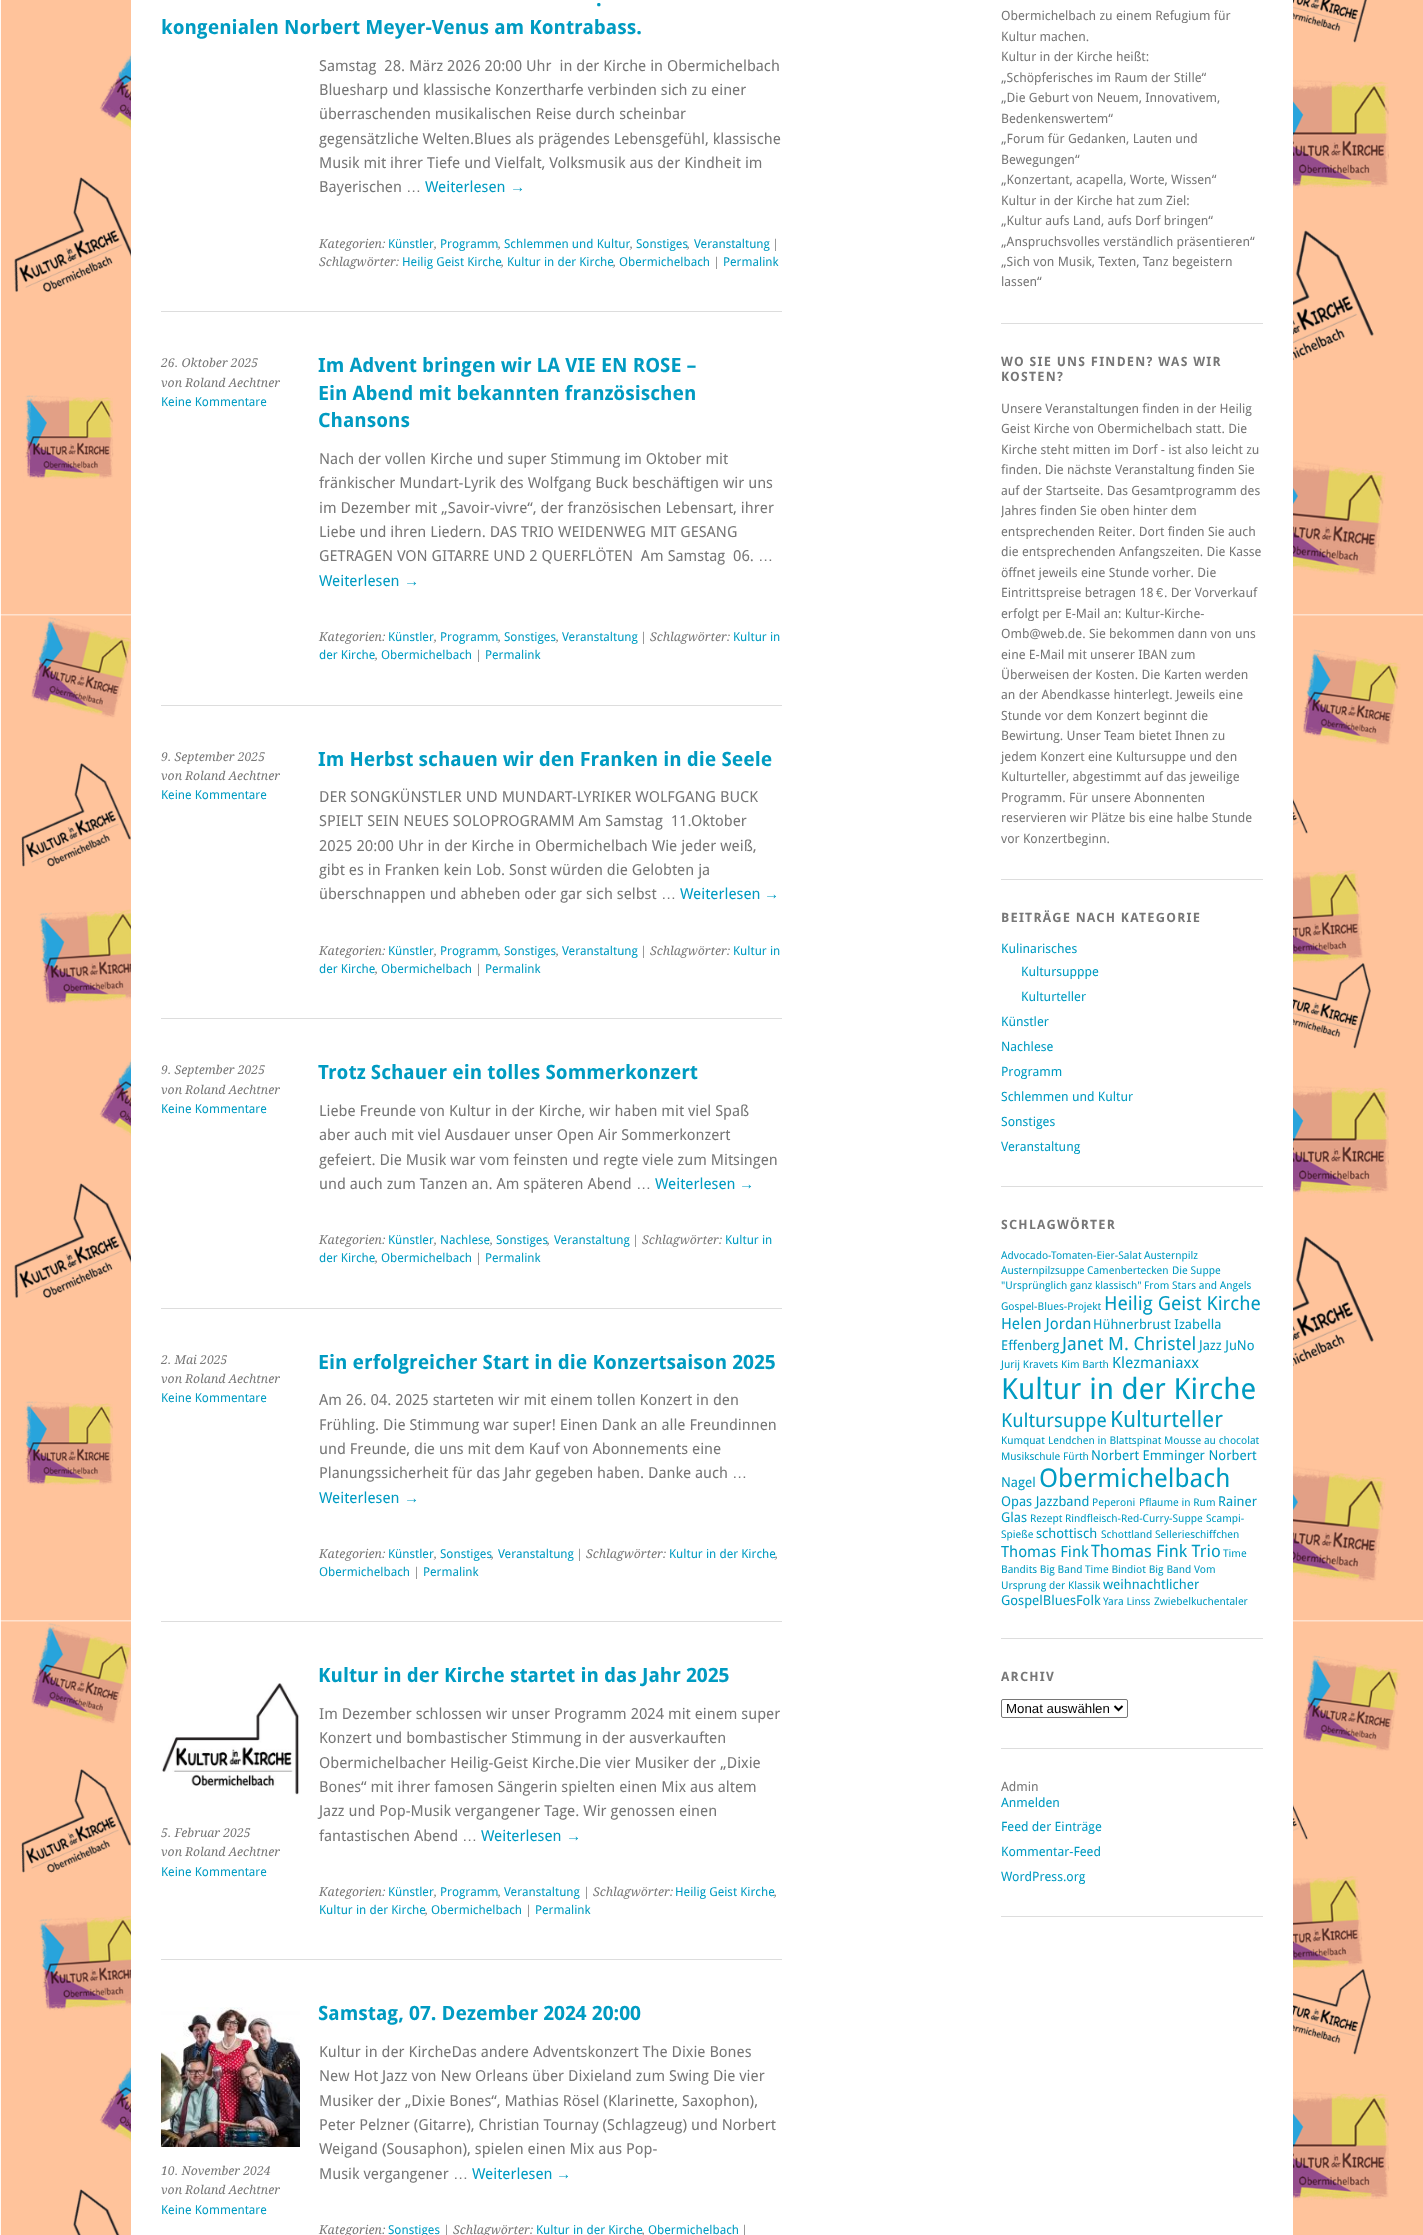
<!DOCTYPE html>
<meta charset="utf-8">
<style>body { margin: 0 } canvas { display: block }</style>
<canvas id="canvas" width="1423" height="2235"></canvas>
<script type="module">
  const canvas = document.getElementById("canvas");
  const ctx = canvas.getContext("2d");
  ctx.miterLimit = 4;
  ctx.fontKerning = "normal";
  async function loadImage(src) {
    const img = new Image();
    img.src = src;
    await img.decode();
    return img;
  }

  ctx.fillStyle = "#ffffff";
  ctx.fillRect(0, 0, 1423, 2235);
  ctx.drawImage(await loadImage("img1.png"), 0, 0, 1423, 2235);
  ctx.fillRect(131, 0, 1162, 2235);
  ctx.fillStyle = "#dddddd";
  ctx.fillRect(161, 311, 621, 1);
  ctx.font = "bold 19.75px Droid Sans";
  ctx.fillStyle = "#009bc2";
  ctx.fillText(".", 596, 6);
  ctx.fillText("kongenialen Norbert Meyer-Venus am Kontrabass.", 161, 34);
  ctx.font = "15.2px Droid Sans";
  ctx.fillStyle = "#777777";
  ctx.fillText("Samstag  28. März 2026 20:00 Uhr  in der Kirche in Obermichelbach", 319, 71);
  ctx.fillText("Bluesharp und klassische Konzertharfe verbinden sich zu einer", 319, 95);
  ctx.fillText("überraschenden musikalischen Reise durch scheinbar", 319, 119);
  ctx.fillText("gegensätzliche Welten.Blues als prägendes Lebensgefühl, klassische", 319, 144);
  ctx.fillText("Musik mit ihrer Tiefe und Vielfalt, Volksmusik aus der Kindheit im", 319, 168);
  ctx.fillText("Bayerischen", 319, 192);
  ctx.font = "15.2px Liberation Sans";
  ctx.fillText("…", 406, 192);
  ctx.font = "15.2px Droid Sans";
  ctx.fillStyle = "#009bc2";
  ctx.fillText("Weiterlesen", 425, 192);
  ctx.font = "15.2px Liberation Sans";
  ctx.fillText("→", 510, 192);
  ctx.font = "italic 12.25px Droid Serif";
  ctx.fillStyle = "#777777";
  ctx.fillText("Kategorien:", 319, 248);
  ctx.font = "12.25px Droid Sans";
  ctx.fillStyle = "#009bc2";
  ctx.fillText("Künstler", 388, 248);
  ctx.font = "italic 12.25px Droid Serif";
  ctx.fillStyle = "#777777";
  ctx.fillText(",", 434, 248);
  ctx.font = "12.25px Droid Sans";
  ctx.fillStyle = "#009bc2";
  ctx.fillText("Programm", 440, 248);
  ctx.font = "italic 12.25px Droid Serif";
  ctx.fillStyle = "#777777";
  ctx.fillText(",", 498, 248);
  ctx.font = "12.25px Droid Sans";
  ctx.fillStyle = "#009bc2";
  ctx.fillText("Schlemmen und Kultur", 504, 248);
  ctx.font = "italic 12.25px Droid Serif";
  ctx.fillStyle = "#777777";
  ctx.fillText(",", 630, 248);
  ctx.font = "12.25px Droid Sans";
  ctx.fillStyle = "#009bc2";
  ctx.fillText("Sonstiges", 636, 248);
  ctx.font = "italic 12.25px Droid Serif";
  ctx.fillStyle = "#777777";
  ctx.fillText(",", 687, 248);
  ctx.font = "12.25px Droid Sans";
  ctx.fillStyle = "#009bc2";
  ctx.fillText("Veranstaltung", 694, 248);
  ctx.font = "italic 12.25px Droid Serif";
  ctx.fillStyle = "#777777";
  ctx.fillText("|", 772, 248);
  ctx.fillText("Schlagwörter:", 319, 266);
  ctx.font = "12.25px Droid Sans";
  ctx.fillStyle = "#009bc2";
  ctx.fillText("Heilig Geist Kirche", 402, 266);
  ctx.font = "italic 12.25px Droid Serif";
  ctx.fillStyle = "#777777";
  ctx.fillText(",", 501, 266);
  ctx.font = "12.25px Droid Sans";
  ctx.fillStyle = "#009bc2";
  ctx.fillText("Kultur in der Kirche", 507, 266);
  ctx.font = "italic 12.25px Droid Serif";
  ctx.fillStyle = "#777777";
  ctx.fillText(",", 613, 266);
  ctx.font = "12.25px Droid Sans";
  ctx.fillStyle = "#009bc2";
  ctx.fillText("Obermichelbach", 619, 266);
  ctx.font = "italic 12.25px Droid Serif";
  ctx.fillStyle = "#777777";
  ctx.fillText("|", 713, 266);
  ctx.font = "12.25px Droid Sans";
  ctx.fillStyle = "#009bc2";
  ctx.fillText("Permalink", 723, 266);
  ctx.fillStyle = "#dddddd";
  ctx.fillRect(161, 705, 621, 1);
  ctx.font = "italic 12.25px Droid Serif";
  ctx.fillStyle = "#777777";
  ctx.fillText("26. Oktober 2025", 161, 367);
  ctx.fillText("von Roland Aechtner", 161, 387);
  ctx.font = "12.25px Droid Sans";
  ctx.fillStyle = "#009bc2";
  ctx.fillText("Keine Kommentare", 161, 406);
  ctx.font = "bold 19.75px Droid Sans";
  ctx.fillText("Im Advent bringen wir LA VIE EN ROSE –", 318, 372);
  ctx.fillText("Ein Abend mit bekannten französischen", 318, 400);
  ctx.fillText("Chansons", 318, 427);
  ctx.font = "15.2px Droid Sans";
  ctx.fillStyle = "#777777";
  ctx.fillText("Nach der vollen Kirche und super Stimmung im Oktober mit", 319, 464);
  ctx.fillText("fränkischer Mundart-Lyrik des Wolfgang Buck beschäftigen wir uns", 319, 488);
  ctx.fillText("im Dezember mit „Savoir-vivre“, der französischen Lebensart, ihrer", 319, 513);
  ctx.fillText("Liebe und ihren Liedern. DAS TRIO WEIDENWEG MIT GESANG", 319, 537);
  ctx.fillText("GETRAGEN VON GITARRE UND 2 QUERFLÖTEN  Am Samstag  06.", 319, 561);
  ctx.font = "15.2px Liberation Sans";
  ctx.fillText("…", 758, 561);
  ctx.font = "15.2px Droid Sans";
  ctx.fillStyle = "#009bc2";
  ctx.fillText("Weiterlesen", 319, 586);
  ctx.font = "15.2px Liberation Sans";
  ctx.fillText("→", 404, 586);
  ctx.font = "italic 12.25px Droid Serif";
  ctx.fillStyle = "#777777";
  ctx.fillText("Kategorien:", 319, 641);
  ctx.font = "12.25px Droid Sans";
  ctx.fillStyle = "#009bc2";
  ctx.fillText("Künstler", 388, 641);
  ctx.font = "italic 12.25px Droid Serif";
  ctx.fillStyle = "#777777";
  ctx.fillText(",", 434, 641);
  ctx.font = "12.25px Droid Sans";
  ctx.fillStyle = "#009bc2";
  ctx.fillText("Programm", 440, 641);
  ctx.font = "italic 12.25px Droid Serif";
  ctx.fillStyle = "#777777";
  ctx.fillText(",", 498, 641);
  ctx.font = "12.25px Droid Sans";
  ctx.fillStyle = "#009bc2";
  ctx.fillText("Sonstiges", 504, 641);
  ctx.font = "italic 12.25px Droid Serif";
  ctx.fillStyle = "#777777";
  ctx.fillText(",", 556, 641);
  ctx.font = "12.25px Droid Sans";
  ctx.fillStyle = "#009bc2";
  ctx.fillText("Veranstaltung", 562, 641);
  ctx.font = "italic 12.25px Droid Serif";
  ctx.fillStyle = "#777777";
  ctx.fillText("| Schlagwörter:", 640, 641);
  ctx.font = "12.25px Droid Sans";
  ctx.fillStyle = "#009bc2";
  ctx.fillText("Kultur in", 733, 641);
  ctx.fillText("der Kirche", 319, 659);
  ctx.font = "italic 12.25px Droid Serif";
  ctx.fillStyle = "#777777";
  ctx.fillText(",", 375, 659);
  ctx.font = "12.25px Droid Sans";
  ctx.fillStyle = "#009bc2";
  ctx.fillText("Obermichelbach", 381, 659);
  ctx.font = "italic 12.25px Droid Serif";
  ctx.fillStyle = "#777777";
  ctx.fillText("|", 475, 659);
  ctx.font = "12.25px Droid Sans";
  ctx.fillStyle = "#009bc2";
  ctx.fillText("Permalink", 485, 659);
  ctx.fillStyle = "#dddddd";
  ctx.fillRect(161, 1018, 621, 1);
  ctx.font = "italic 12.25px Droid Serif";
  ctx.fillStyle = "#777777";
  ctx.fillText("9. September 2025", 161, 761);
  ctx.fillText("von Roland Aechtner", 161, 780);
  ctx.font = "12.25px Droid Sans";
  ctx.fillStyle = "#009bc2";
  ctx.fillText("Keine Kommentare", 161, 799);
  ctx.font = "bold 19.75px Droid Sans";
  ctx.fillText("Im Herbst schauen wir den Franken in die Seele", 318, 766);
  ctx.font = "15.2px Droid Sans";
  ctx.fillStyle = "#777777";
  ctx.fillText("DER SONGKÜNSTLER UND MUNDART-LYRIKER WOLFGANG BUCK", 319, 802);
  ctx.fillText("SPIELT SEIN NEUES SOLOPROGRAMM Am Samstag  11.Oktober", 319, 826);
  ctx.fillText("2025 20:00 Uhr in der Kirche in Obermichelbach Wie jeder weiß,", 319, 851);
  ctx.fillText("gibt es in Franken kein Lob. Sonst würden die Gelobten ja", 319, 875);
  ctx.fillText("überschnappen und abheben oder gar sich selbst", 319, 899);
  ctx.font = "15.2px Liberation Sans";
  ctx.fillText("…", 661, 899);
  ctx.font = "15.2px Droid Sans";
  ctx.fillStyle = "#009bc2";
  ctx.fillText("Weiterlesen", 680, 899);
  ctx.font = "15.2px Liberation Sans";
  ctx.fillText("→", 764, 899);
  ctx.font = "italic 12.25px Droid Serif";
  ctx.fillStyle = "#777777";
  ctx.fillText("Kategorien:", 319, 955);
  ctx.font = "12.25px Droid Sans";
  ctx.fillStyle = "#009bc2";
  ctx.fillText("Künstler", 388, 955);
  ctx.font = "italic 12.25px Droid Serif";
  ctx.fillStyle = "#777777";
  ctx.fillText(",", 434, 955);
  ctx.font = "12.25px Droid Sans";
  ctx.fillStyle = "#009bc2";
  ctx.fillText("Programm", 440, 955);
  ctx.font = "italic 12.25px Droid Serif";
  ctx.fillStyle = "#777777";
  ctx.fillText(",", 498, 955);
  ctx.font = "12.25px Droid Sans";
  ctx.fillStyle = "#009bc2";
  ctx.fillText("Sonstiges", 504, 955);
  ctx.font = "italic 12.25px Droid Serif";
  ctx.fillStyle = "#777777";
  ctx.fillText(",", 556, 955);
  ctx.font = "12.25px Droid Sans";
  ctx.fillStyle = "#009bc2";
  ctx.fillText("Veranstaltung", 562, 955);
  ctx.font = "italic 12.25px Droid Serif";
  ctx.fillStyle = "#777777";
  ctx.fillText("| Schlagwörter:", 640, 955);
  ctx.font = "12.25px Droid Sans";
  ctx.fillStyle = "#009bc2";
  ctx.fillText("Kultur in", 733, 955);
  ctx.fillText("der Kirche", 319, 973);
  ctx.font = "italic 12.25px Droid Serif";
  ctx.fillStyle = "#777777";
  ctx.fillText(",", 375, 973);
  ctx.font = "12.25px Droid Sans";
  ctx.fillStyle = "#009bc2";
  ctx.fillText("Obermichelbach", 381, 973);
  ctx.font = "italic 12.25px Droid Serif";
  ctx.fillStyle = "#777777";
  ctx.fillText("|", 475, 973);
  ctx.font = "12.25px Droid Sans";
  ctx.fillStyle = "#009bc2";
  ctx.fillText("Permalink", 485, 973);
  ctx.fillStyle = "#dddddd";
  ctx.fillRect(161, 1308, 621, 1);
  ctx.font = "italic 12.25px Droid Serif";
  ctx.fillStyle = "#777777";
  ctx.fillText("9. September 2025", 161, 1074);
  ctx.fillText("von Roland Aechtner", 161, 1094);
  ctx.font = "12.25px Droid Sans";
  ctx.fillStyle = "#009bc2";
  ctx.fillText("Keine Kommentare", 161, 1113);
  ctx.font = "bold 19.75px Droid Sans";
  ctx.fillText("Trotz Schauer ein tolles Sommerkonzert", 318, 1079);
  ctx.font = "15.2px Droid Sans";
  ctx.fillStyle = "#777777";
  ctx.fillText("Liebe Freunde von Kultur in der Kirche, wir haben mit viel Spaß", 319, 1116);
  ctx.fillText("aber auch mit viel Ausdauer unser Open Air Sommerkonzert", 319, 1140);
  ctx.fillText("gefeiert. Die Musik war vom feinsten und regte viele zum Mitsingen", 319, 1165);
  ctx.fillText("und auch zum Tanzen an. Am späteren Abend", 319, 1189);
  ctx.font = "15.2px Liberation Sans";
  ctx.fillText("…", 636, 1189);
  ctx.font = "15.2px Droid Sans";
  ctx.fillStyle = "#009bc2";
  ctx.fillText("Weiterlesen", 655, 1189);
  ctx.font = "15.2px Liberation Sans";
  ctx.fillText("→", 739, 1189);
  ctx.font = "italic 12.25px Droid Serif";
  ctx.fillStyle = "#777777";
  ctx.fillText("Kategorien:", 319, 1244);
  ctx.font = "12.25px Droid Sans";
  ctx.fillStyle = "#009bc2";
  ctx.fillText("Künstler", 388, 1244);
  ctx.font = "italic 12.25px Droid Serif";
  ctx.fillStyle = "#777777";
  ctx.fillText(",", 434, 1244);
  ctx.font = "12.25px Droid Sans";
  ctx.fillStyle = "#009bc2";
  ctx.fillText("Nachlese", 440, 1244);
  ctx.font = "italic 12.25px Droid Serif";
  ctx.fillStyle = "#777777";
  ctx.fillText(",", 490, 1244);
  ctx.font = "12.25px Droid Sans";
  ctx.fillStyle = "#009bc2";
  ctx.fillText("Sonstiges", 496, 1244);
  ctx.font = "italic 12.25px Droid Serif";
  ctx.fillStyle = "#777777";
  ctx.fillText(",", 547, 1244);
  ctx.font = "12.25px Droid Sans";
  ctx.fillStyle = "#009bc2";
  ctx.fillText("Veranstaltung", 554, 1244);
  ctx.font = "italic 12.25px Droid Serif";
  ctx.fillStyle = "#777777";
  ctx.fillText("| Schlagwörter:", 632, 1244);
  ctx.font = "12.25px Droid Sans";
  ctx.fillStyle = "#009bc2";
  ctx.fillText("Kultur in", 725, 1244);
  ctx.fillText("der Kirche", 319, 1262);
  ctx.font = "italic 12.25px Droid Serif";
  ctx.fillStyle = "#777777";
  ctx.fillText(",", 375, 1262);
  ctx.font = "12.25px Droid Sans";
  ctx.fillStyle = "#009bc2";
  ctx.fillText("Obermichelbach", 381, 1262);
  ctx.font = "italic 12.25px Droid Serif";
  ctx.fillStyle = "#777777";
  ctx.fillText("|", 475, 1262);
  ctx.font = "12.25px Droid Sans";
  ctx.fillStyle = "#009bc2";
  ctx.fillText("Permalink", 485, 1262);
  ctx.fillStyle = "#dddddd";
  ctx.fillRect(161, 1621, 621, 1);
  ctx.font = "italic 12.25px Droid Serif";
  ctx.fillStyle = "#777777";
  ctx.fillText("2. Mai 2025", 161, 1364);
  ctx.fillText("von Roland Aechtner", 161, 1383);
  ctx.font = "12.25px Droid Sans";
  ctx.fillStyle = "#009bc2";
  ctx.fillText("Keine Kommentare", 161, 1402);
  ctx.font = "bold 19.75px Droid Sans";
  ctx.fillText("Ein erfolgreicher Start in die Konzertsaison 2025", 318, 1369);
  ctx.font = "15.2px Droid Sans";
  ctx.fillStyle = "#777777";
  ctx.fillText("Am 26. 04. 2025 starteten wir mit einem tollen Konzert in den", 319, 1405);
  ctx.fillText("Frühling. Die Stimmung war super! Einen Dank an alle Freundinnen", 319, 1430);
  ctx.fillText("und Freunde, die uns mit dem Kauf von Abonnements eine", 319, 1454);
  ctx.fillText("Planungssicherheit für das Jahr gegeben haben. Danke auch", 319, 1478);
  ctx.font = "15.2px Liberation Sans";
  ctx.fillText("…", 732, 1478);
  ctx.font = "15.2px Droid Sans";
  ctx.fillStyle = "#009bc2";
  ctx.fillText("Weiterlesen", 319, 1503);
  ctx.font = "15.2px Liberation Sans";
  ctx.fillText("→", 404, 1503);
  ctx.font = "italic 12.25px Droid Serif";
  ctx.fillStyle = "#777777";
  ctx.fillText("Kategorien:", 319, 1558);
  ctx.font = "12.25px Droid Sans";
  ctx.fillStyle = "#009bc2";
  ctx.fillText("Künstler", 388, 1558);
  ctx.font = "italic 12.25px Droid Serif";
  ctx.fillStyle = "#777777";
  ctx.fillText(",", 434, 1558);
  ctx.font = "12.25px Droid Sans";
  ctx.fillStyle = "#009bc2";
  ctx.fillText("Sonstiges", 440, 1558);
  ctx.font = "italic 12.25px Droid Serif";
  ctx.fillStyle = "#777777";
  ctx.fillText(",", 491, 1558);
  ctx.font = "12.25px Droid Sans";
  ctx.fillStyle = "#009bc2";
  ctx.fillText("Veranstaltung", 498, 1558);
  ctx.font = "italic 12.25px Droid Serif";
  ctx.fillStyle = "#777777";
  ctx.fillText("| Schlagwörter:", 576, 1558);
  ctx.font = "12.25px Droid Sans";
  ctx.fillStyle = "#009bc2";
  ctx.fillText("Kultur in der Kirche", 669, 1558);
  ctx.font = "italic 12.25px Droid Serif";
  ctx.fillStyle = "#777777";
  ctx.fillText(",", 775, 1558);
  ctx.font = "12.25px Droid Sans";
  ctx.fillStyle = "#009bc2";
  ctx.fillText("Obermichelbach", 319, 1576);
  ctx.font = "italic 12.25px Droid Serif";
  ctx.fillStyle = "#777777";
  ctx.fillText("|", 413, 1576);
  ctx.font = "12.25px Droid Sans";
  ctx.fillStyle = "#009bc2";
  ctx.fillText("Permalink", 423, 1576);
  ctx.fillStyle = "#dddddd";
  ctx.fillRect(161, 1959, 621, 1);
  ctx.font = "bold 19.75px Droid Sans";
  ctx.fillStyle = "#009bc2";
  ctx.fillText("Kultur in der Kirche startet in das Jahr 2025", 318, 1682);
  ctx.drawImage(await loadImage("img2.png"), 161, 1683, 139, 112);
  ctx.font = "italic 12.25px Droid Serif";
  ctx.fillStyle = "#777777";
  ctx.fillText("5. Februar 2025", 161, 1837);
  ctx.fillText("von Roland Aechtner", 161, 1856);
  ctx.font = "12.25px Droid Sans";
  ctx.fillStyle = "#009bc2";
  ctx.fillText("Keine Kommentare", 161, 1876);
  ctx.font = "15.2px Droid Sans";
  ctx.fillStyle = "#777777";
  ctx.fillText("Im Dezember schlossen wir unser Programm 2024 mit einem super", 319, 1719);
  ctx.fillText("Konzert und bombastischer Stimmung in der ausverkauften", 319, 1743);
  ctx.fillText("Obermichelbacher Heilig-Geist Kirche.Die vier Musiker der „Dixie", 319, 1768);
  ctx.fillText("Bones“ mit ihrer famosen Sängerin spielten einen Mix aus altem", 319, 1792);
  ctx.fillText("Jazz und Pop-Musik vergangener Tage. Wir genossen einen", 319, 1816);
  ctx.fillText("fantastischen Abend", 319, 1841);
  ctx.font = "15.2px Liberation Sans";
  ctx.fillText("…", 462, 1841);
  ctx.font = "15.2px Droid Sans";
  ctx.fillStyle = "#009bc2";
  ctx.fillText("Weiterlesen", 481, 1841);
  ctx.font = "15.2px Liberation Sans";
  ctx.fillText("→", 566, 1841);
  ctx.font = "italic 12.25px Droid Serif";
  ctx.fillStyle = "#777777";
  ctx.fillText("Kategorien:", 319, 1896);
  ctx.font = "12.25px Droid Sans";
  ctx.fillStyle = "#009bc2";
  ctx.fillText("Künstler", 388, 1896);
  ctx.font = "italic 12.25px Droid Serif";
  ctx.fillStyle = "#777777";
  ctx.fillText(",", 434, 1896);
  ctx.font = "12.25px Droid Sans";
  ctx.fillStyle = "#009bc2";
  ctx.fillText("Programm", 440, 1896);
  ctx.font = "italic 12.25px Droid Serif";
  ctx.fillStyle = "#777777";
  ctx.fillText(",", 498, 1896);
  ctx.font = "12.25px Droid Sans";
  ctx.fillStyle = "#009bc2";
  ctx.fillText("Veranstaltung", 504, 1896);
  ctx.font = "italic 12.25px Droid Serif";
  ctx.fillStyle = "#777777";
  ctx.fillText("| Schlagwörter:", 583, 1896);
  ctx.font = "12.25px Droid Sans";
  ctx.fillStyle = "#009bc2";
  ctx.fillText("Heilig Geist Kirche", 675, 1896);
  ctx.font = "italic 12.25px Droid Serif";
  ctx.fillStyle = "#777777";
  ctx.fillText(",", 774, 1896);
  ctx.font = "12.25px Droid Sans";
  ctx.fillStyle = "#009bc2";
  ctx.fillText("Kultur in der Kirche", 319, 1914);
  ctx.font = "italic 12.25px Droid Serif";
  ctx.fillStyle = "#777777";
  ctx.fillText(",", 425, 1914);
  ctx.font = "12.25px Droid Sans";
  ctx.fillStyle = "#009bc2";
  ctx.fillText("Obermichelbach", 431, 1914);
  ctx.font = "italic 12.25px Droid Serif";
  ctx.fillStyle = "#777777";
  ctx.fillText("|", 525, 1914);
  ctx.font = "12.25px Droid Sans";
  ctx.fillStyle = "#009bc2";
  ctx.fillText("Permalink", 535, 1914);
  ctx.font = "bold 19.75px Droid Sans";
  ctx.fillText("Samstag, 07. Dezember 2024 20:00", 318, 2020);
  ctx.drawImage(await loadImage("img3.png"), 161, 2007, 139, 140);
  ctx.font = "italic 12.25px Droid Serif";
  ctx.fillStyle = "#777777";
  ctx.fillText("10. November 2024", 161, 2175);
  ctx.fillText("von Roland Aechtner", 161, 2194);
  ctx.font = "12.25px Droid Sans";
  ctx.fillStyle = "#009bc2";
  ctx.fillText("Keine Kommentare", 161, 2214);
  ctx.font = "15.2px Droid Sans";
  ctx.fillStyle = "#777777";
  ctx.fillText("Kultur in der KircheDas andere Adventskonzert The Dixie Bones", 319, 2057);
  ctx.fillText("New Hot Jazz von New Orleans über Dixieland zum Swing Die vier", 319, 2081);
  ctx.fillText("Musiker der „Dixie Bones“, Mathias Rösel (Klarinette, Saxophon),", 319, 2106);
  ctx.fillText("Peter Pelzner (Gitarre), Christian Tournay (Schlagzeug) und Norbert", 319, 2130);
  ctx.fillText("Weigand (Sousaphon), spielen einen Mix aus Pop-", 319, 2154);
  ctx.fillText("Musik vergangener", 319, 2179);
  ctx.font = "15.2px Liberation Sans";
  ctx.fillText("…", 453, 2179);
  ctx.font = "15.2px Droid Sans";
  ctx.fillStyle = "#009bc2";
  ctx.fillText("Weiterlesen", 472, 2179);
  ctx.font = "15.2px Liberation Sans";
  ctx.fillText("→", 556, 2179);
  ctx.font = "italic 12.25px Droid Serif";
  ctx.fillStyle = "#777777";
  ctx.fillText("Kategorien:", 319, 2234);
  ctx.font = "12.25px Droid Sans";
  ctx.fillStyle = "#009bc2";
  ctx.fillText("Sonstiges", 388, 2234);
  ctx.font = "italic 12.25px Droid Serif";
  ctx.fillStyle = "#777777";
  ctx.fillText("| Schlagwörter:", 443, 2234);
  ctx.font = "12.25px Droid Sans";
  ctx.fillStyle = "#009bc2";
  ctx.fillText("Kultur in der Kirche", 536, 2234);
  ctx.font = "italic 12.25px Droid Serif";
  ctx.fillStyle = "#777777";
  ctx.fillText(",", 642, 2234);
  ctx.font = "12.25px Droid Sans";
  ctx.fillStyle = "#009bc2";
  ctx.fillText("Obermichelbach", 648, 2234);
  ctx.font = "italic 12.25px Droid Serif";
  ctx.fillStyle = "#777777";
  ctx.fillText("|", 741, 2234);
  ctx.fillStyle = "#dddddd";
  ctx.fillRect(1001, 323, 262, 1);
  ctx.font = "12.8px Droid Sans";
  ctx.fillStyle = "#777777";
  ctx.fillText("Obermichelbach zu einem Refugium für", 1001, 20);
  ctx.fillText("Kultur machen.", 1001, 41);
  ctx.fillText("Kultur in der Kirche heißt:", 1001, 61);
  ctx.fillText("„Schöpferisches im Raum der Stille“", 1001, 82);
  ctx.fillText("„Die Geburt von Neuem, Innovativem,", 1001, 102);
  ctx.fillText("Bedenkenswertem“", 1001, 123);
  ctx.fillText("„Forum für Gedanken, Lauten und", 1001, 143);
  ctx.fillText("Bewegungen“", 1001, 164);
  ctx.fillText("„Konzertant, acapella, Worte, Wissen“", 1001, 184);
  ctx.fillText("Kultur in der Kirche hat zum Ziel:", 1001, 205);
  ctx.fillText("„Kultur aufs Land, aufs Dorf bringen“", 1001, 225);
  ctx.fillText("„Anspruchsvolles verständlich präsentieren“", 1001, 246);
  ctx.fillText("„Sich von Musik, Texten, Tanz begeistern", 1001, 266);
  ctx.fillText("lassen“", 1001, 286);
  ctx.fillStyle = "#dddddd";
  ctx.fillRect(1001, 879, 262, 1);
  ctx.save();
  ctx.beginPath();
  ctx.rect(1001, 0, 262, 1947);
  ctx.clip();
  ctx.letterSpacing = "1.25px";
  ctx.font = "bold 12.8px Droid Sans";
  ctx.fillStyle = "#777777";
  ctx.fillText("WO SIE UNS FINDEN? WAS WIR", 1001, 366);
  ctx.restore();
  ctx.letterSpacing = "1.25px";
  ctx.font = "bold 12.8px Droid Sans";
  ctx.fillStyle = "#777777";
  ctx.fillText("KOSTEN?", 1001, 381);
  ctx.letterSpacing = "0px";
  ctx.font = "12.8px Droid Sans";
  ctx.fillText("Unsere Veranstaltungen finden in der Heilig", 1001, 413);
  ctx.fillText("Geist Kirche von Obermichelbach statt. Die", 1001, 433);
  ctx.fillText("Kirche steht mitten im Dorf - ist also leicht zu", 1001, 454);
  ctx.fillText("finden. Die nächste Veranstaltung finden Sie", 1001, 474);
  ctx.fillText("auf der Startseite. Das Gesamtprogramm des", 1001, 495);
  ctx.save();
  ctx.beginPath();
  ctx.rect(1001, 0, 262, 1947);
  ctx.clip();
  ctx.fillText("Jahres finden Sie oben hinter dem", 1001, 515);
  ctx.restore();
  ctx.fillText("entsprechenden Reiter. Dort finden Sie auch", 1001, 536);
  ctx.fillText("die entsprechenden Anfangszeiten. Die Kasse", 1001, 556);
  ctx.fillText("öffnet jeweils eine Stunde vorher. Die", 1001, 577);
  ctx.fillText("Eintrittspreise betragen 18", 1001, 597);
  ctx.font = "12.8px Liberation Sans";
  ctx.fillText("€", 1156, 597);
  ctx.font = "12.8px Droid Sans";
  ctx.fillText(". Der Vorverkauf", 1164, 597);
  ctx.fillText("erfolgt per E-Mail an: Kultur-Kirche-", 1001, 618);
  ctx.fillText("Omb@web.de. Sie bekommen dann von uns", 1001, 638);
  ctx.fillText("eine E-Mail mit unserer IBAN zum", 1001, 659);
  ctx.fillText("Überweisen der Kosten. Die Karten werden", 1001, 679);
  ctx.fillText("an der Abendkasse hinterlegt. Jeweils eine", 1001, 699);
  ctx.fillText("Stunde vor dem Konzert beginnt die", 1001, 720);
  ctx.fillText("Bewirtung. Unser Team bietet Ihnen zu", 1001, 740);
  ctx.fillText("jedem Konzert eine Kultursuppe und den", 1001, 761);
  ctx.fillText("Kulturteller, abgestimmt auf das jeweilige", 1001, 781);
  ctx.fillText("Programm. Für unsere Abonnenten", 1001, 802);
  ctx.fillText("reservieren wir Plätze bis eine halbe Stunde", 1001, 822);
  ctx.fillText("vor Konzertbeginn.", 1001, 843);
  ctx.fillStyle = "#dddddd";
  ctx.fillRect(1001, 1186, 262, 1);
  ctx.letterSpacing = "1.25px";
  ctx.font = "bold 12.8px Droid Sans";
  ctx.fillStyle = "#777777";
  ctx.fillText("BEITRÄGE NACH KATEGORIE", 1001, 922);
  ctx.letterSpacing = "0px";
  ctx.font = "12.8px Droid Sans";
  ctx.fillStyle = "#009bc2";
  ctx.fillText("Kulinarisches", 1001, 953);
  ctx.fillText("Kultursupppe", 1021, 976);
  ctx.fillText("Kulturteller", 1021, 1001);
  ctx.fillText("Künstler", 1001, 1026);
  ctx.fillText("Nachlese", 1001, 1051);
  ctx.fillText("Programm", 1001, 1076);
  ctx.fillText("Schlemmen und Kultur", 1001, 1101);
  ctx.fillText("Sonstiges", 1001, 1126);
  ctx.fillText("Veranstaltung", 1001, 1151);
  ctx.fillStyle = "#dddddd";
  ctx.fillRect(1001, 1638, 262, 1);
  ctx.letterSpacing = "1.25px";
  ctx.font = "bold 12.8px Droid Sans";
  ctx.fillStyle = "#777777";
  ctx.fillText("SCHLAGWÖRTER", 1001, 1229);
  ctx.letterSpacing = "0px";
  ctx.font = "10.7px Droid Sans";
  ctx.fillStyle = "#009bc2";
  ctx.fillText("Advocado-Tomaten-Eier-Salat", 1001, 1259);
  ctx.fillText("Austernpilz", 1144, 1259);
  ctx.fillText("Austernpilzsuppe", 1001, 1274);
  ctx.fillText("Camenbertecken", 1087, 1274);
  ctx.fillText("Die Suppe", 1172, 1274);
  ctx.fillText("\"Ursprünglich ganz klassisch\"", 1001, 1289);
  ctx.fillText("From Stars and Angels", 1144, 1289);
  ctx.fillText("Gospel-Blues-Projekt", 1001, 1310);
  ctx.font = "19.25px Droid Sans";
  ctx.fillText("Heilig Geist Kirche", 1104, 1310);
  ctx.font = "15.5px Droid Sans";
  ctx.fillText("Helen Jordan", 1001, 1329);
  ctx.font = "13.5px Droid Sans";
  ctx.fillText("Hühnerbrust Izabella", 1093, 1329);
  ctx.fillText("Effenberg", 1001, 1350);
  ctx.font = "18.25px Droid Sans";
  ctx.fillText("Janet M. Christel", 1062, 1350);
  ctx.font = "13.5px Droid Sans";
  ctx.fillText("Jazz JuNo", 1199, 1350);
  ctx.font = "10.7px Droid Sans";
  ctx.fillText("Jurij Kravets", 1001, 1368);
  ctx.fillText("Kim Barth", 1061, 1368);
  ctx.font = "15.5px Droid Sans";
  ctx.fillText("Klezmaniaxx", 1112, 1368);
  ctx.font = "29.25px Droid Sans";
  ctx.fillText("Kultur in der Kirche", 1001, 1399);
  ctx.font = "19.25px Droid Sans";
  ctx.fillText("Kultursuppe", 1001, 1427);
  ctx.font = "22.25px Droid Sans";
  ctx.fillText("Kulturteller", 1110, 1427);
  ctx.font = "10.7px Droid Sans";
  ctx.fillText("Kumquat", 1001, 1444);
  ctx.fillText("Lendchen in Blattspinat", 1048, 1444);
  ctx.fillText("Mousse au chocolat", 1164, 1444);
  ctx.fillText("Musikschule Fürth", 1001, 1460);
  ctx.font = "13.5px Droid Sans";
  ctx.fillText("Norbert Emminger Norbert", 1091, 1460);
  ctx.fillText("Nagel", 1001, 1487);
  ctx.font = "25.75px Droid Sans";
  ctx.fillText("Obermichelbach", 1039, 1487);
  ctx.font = "13.5px Droid Sans";
  ctx.fillText("Opas Jazzband", 1001, 1506);
  ctx.font = "10.7px Droid Sans";
  ctx.fillText("Peperoni", 1092, 1506);
  ctx.fillText("Pflaume in Rum", 1139, 1506);
  ctx.font = "13.5px Droid Sans";
  ctx.fillText("Rainer", 1218, 1506);
  ctx.fillText("Glas", 1001, 1522);
  ctx.font = "10.7px Droid Sans";
  ctx.fillText("Rezept", 1030, 1522);
  ctx.fillText("Rindfleisch-Red-Curry-Suppe", 1065, 1522);
  ctx.fillText("Scampi-", 1206, 1522);
  ctx.fillText("Spieße", 1001, 1538);
  ctx.font = "13.5px Droid Sans";
  ctx.fillText("schottisch", 1036, 1538);
  ctx.font = "10.7px Droid Sans";
  ctx.fillText("Schottland", 1101, 1538);
  ctx.fillText("Sellerieschiffchen", 1155, 1538);
  ctx.font = "15.5px Droid Sans";
  ctx.fillText("Thomas Fink", 1001, 1557);
  ctx.font = "17px Droid Sans";
  ctx.fillText("Thomas Fink Trio", 1091, 1557);
  ctx.font = "10.7px Droid Sans";
  ctx.fillText("Time", 1223, 1557);
  ctx.fillText("Bandits Big Band", 1001, 1573);
  ctx.fillText("Time Bindiot Big Band", 1085, 1573);
  ctx.fillText("Vom", 1194, 1573);
  ctx.fillText("Ursprung der Klassik", 1001, 1589);
  ctx.font = "13.5px Droid Sans";
  ctx.fillText("weihnachtlicher", 1103, 1589);
  ctx.fillText("GospelBluesFolk", 1001, 1605);
  ctx.font = "10.7px Droid Sans";
  ctx.fillText("Yara Linss", 1103, 1605);
  ctx.fillText("Zwiebelkuchentaler", 1154, 1605);
  ctx.fillStyle = "#dddddd";
  ctx.fillRect(1001, 1748, 262, 1);
  ctx.letterSpacing = "1.25px";
  ctx.font = "bold 12.8px Droid Sans";
  ctx.fillStyle = "#777777";
  ctx.fillText("ARCHIV", 1001, 1681);
  ctx.beginPath();
  ctx.roundRect(1001.5, 1699.5, 126, 18, 1.5);
  ctx.strokeStyle = "#767676";
  ctx.stroke();
  ctx.beginPath();
  ctx.moveTo(1114.5, 1706);
  ctx.lineTo(1118.5, 1710);
  ctx.lineTo(1122.5, 1706);
  ctx.strokeStyle = "#000000";
  ctx.lineWidth = 2;
  ctx.stroke();
  ctx.letterSpacing = "0px";
  ctx.font = "13.25px Liberation Sans";
  ctx.fillStyle = "#000000";
  ctx.fillText("Monat auswählen", 1006, 1713);
  ctx.fillStyle = "#dddddd";
  ctx.fillRect(1001, 1916, 262, 1);
  ctx.font = "12.8px Droid Sans";
  ctx.fillStyle = "#777777";
  ctx.fillText("Admin", 1001, 1791);
  ctx.fillStyle = "#009bc2";
  ctx.fillText("Anmelden", 1001, 1807);
  ctx.fillText("Feed der Einträge", 1001, 1831);
  ctx.fillText("Kommentar-Feed", 1001, 1856);
  ctx.fillText("WordPress.org", 1001, 1881);
</script>
